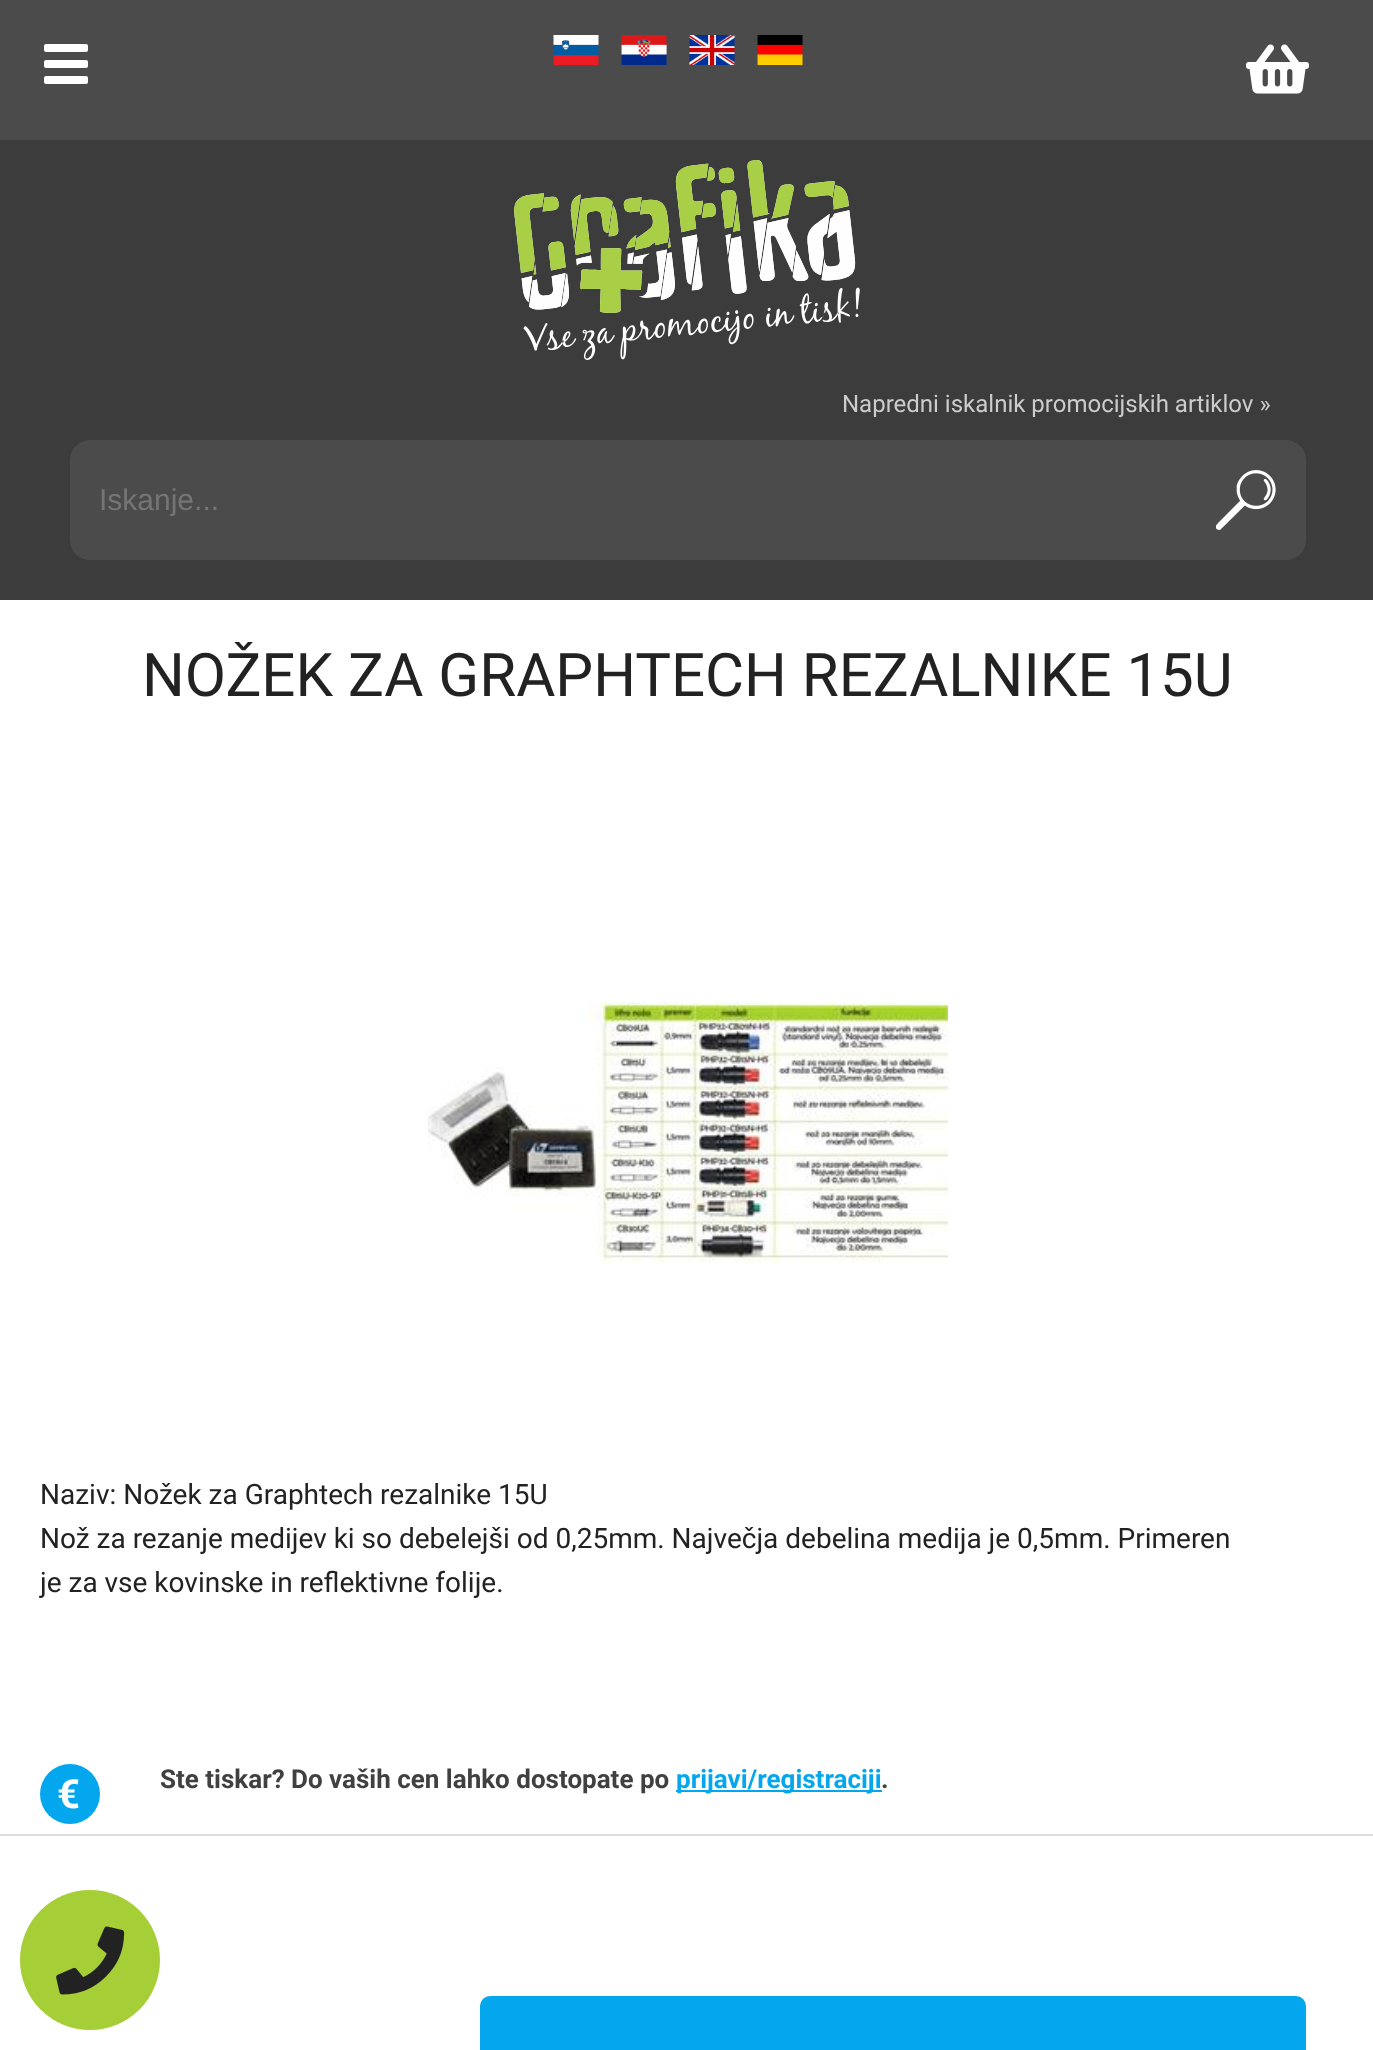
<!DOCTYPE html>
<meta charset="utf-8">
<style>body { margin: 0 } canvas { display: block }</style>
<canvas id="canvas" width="1373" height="2050"></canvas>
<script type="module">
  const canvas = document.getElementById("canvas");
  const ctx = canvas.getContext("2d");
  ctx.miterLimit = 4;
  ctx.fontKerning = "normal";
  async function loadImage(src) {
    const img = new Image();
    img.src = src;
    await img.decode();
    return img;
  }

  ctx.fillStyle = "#ffffff";
  ctx.fillRect(0, 0, 1373, 2050);
  ctx.fillStyle = "#3c3c3c";
  ctx.fillRect(0, 140, 1373, 460);
  ctx.fillStyle = "#4b4b4b";
  ctx.fillRect(0, 0, 1373, 140);
  ctx.drawImage(await loadImage("img1.png"), 553, 35, 46, 30);
  ctx.drawImage(await loadImage("img2.png"), 621, 35, 46, 30);
  ctx.drawImage(await loadImage("img3.png"), 689, 35, 46, 30);
  ctx.drawImage(await loadImage("img4.png"), 757, 35, 46, 30);
  ctx.fillStyle = "#ffffff";
  ctx.beginPath();
  ctx.roundRect(44, 44, 44, 8, 2);
  ctx.fill();
  ctx.beginPath();
  ctx.roundRect(44, 60, 44, 8, 2);
  ctx.fill();
  ctx.beginPath();
  ctx.roundRect(44, 76, 44, 8, 2);
  ctx.fill();
  ctx.drawImage(await loadImage("img5.png"), 1246, 44, 63, 50);
  ctx.drawImage(await loadImage("img6.png"), 514, 160, 346, 200);
  ctx.font = "24px Roboto";
  ctx.fillStyle = "#cccccc";
  ctx.fillText("Napredni iskalnik promocijskih artiklov »", 842, 412);
  ctx.fillStyle = "#4b4b4b";
  ctx.beginPath();
  ctx.roundRect(70, 440, 1236, 120, 20);
  ctx.fill();
  ctx.save();
  ctx.beginPath();
  ctx.rect(100, 482, 1106, 34);
  ctx.clip();
  ctx.font = "30px Liberation Sans";
  ctx.fillStyle = "#757575";
  ctx.fillText("Iskanje...", 99, 510);
  ctx.restore();
  ctx.drawImage(await loadImage("img7.png"), 1216, 470, 60, 60);
  ctx.fillStyle = "#a5ce37";
  ctx.beginPath();
  ctx.arc(90, 1960, 70, 0, Math.PI * 2);
  ctx.fill();
  ctx.drawImage(await loadImage("img8.png"), 56, 1926, 69, 69);
  ctx.font = "60px Roboto";
  ctx.fillStyle = "#222222";
  ctx.fillText("NOŽEK ZA GRAPHTECH REZALNIKE 15U", 142, 696);
  ctx.drawImage(await loadImage("img9.png"), 428, 1001, 520, 262);
  ctx.font = "28px Roboto";
  ctx.fillText("Naziv: Nožek za Graphtech rezalnike 15U", 40, 1504);
  ctx.fillText("Nož za rezanje medijev ki so debelejši od 0,25mm. Največja debelina medija je 0,5mm. Primeren", 40, 1548);
  ctx.fillText("je za vse kovinske in reflektivne folije.", 40, 1592);
  ctx.fillStyle = "#04a7ee";
  ctx.beginPath();
  ctx.arc(70, 1794, 30, 0, Math.PI * 2);
  ctx.fill();
  ctx.font = "bold 40px Roboto";
  ctx.fillStyle = "#ffffff";
  ctx.fillText("€", 57, 1808);
  ctx.font = "bold 26px Roboto";
  ctx.fillStyle = "#404040";
  ctx.fillText("Ste tiskar? Do vaših cen lahko dostopate po", 160, 1788);
  ctx.fillStyle = "#04a7ee";
  ctx.fillRect(676, 1790, 206, 2);
  ctx.fillText("prijavi/registraciji", 676, 1788);
  ctx.fillStyle = "#404040";
  ctx.fillText(".", 881, 1788);
  ctx.fillStyle = "#dddddd";
  ctx.fillRect(0, 1834, 1373, 2);
  ctx.fillStyle = "#04a7ee";
  ctx.beginPath();
  ctx.roundRect(480, 1996, 826, 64, 10);
  ctx.fill();
</script>
